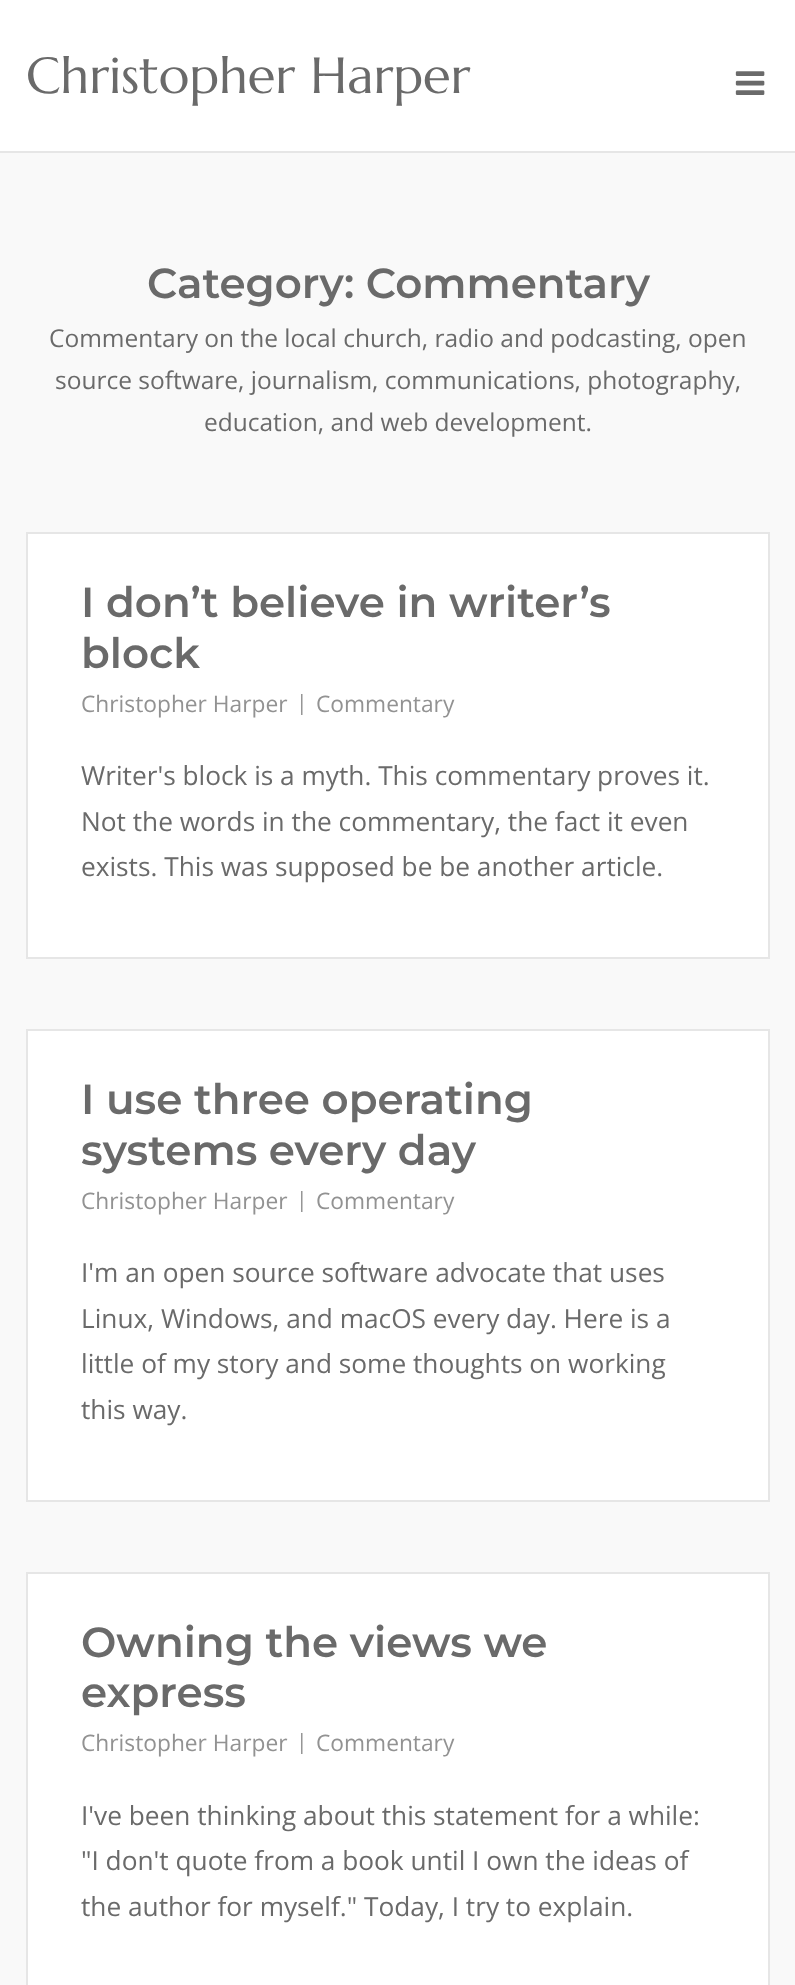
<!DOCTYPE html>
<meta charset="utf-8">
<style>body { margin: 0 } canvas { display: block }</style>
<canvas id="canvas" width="795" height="1985"></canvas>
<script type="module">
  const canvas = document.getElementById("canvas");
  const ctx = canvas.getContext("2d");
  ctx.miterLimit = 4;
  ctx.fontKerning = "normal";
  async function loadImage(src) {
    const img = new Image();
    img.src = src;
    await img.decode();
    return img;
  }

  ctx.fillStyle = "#f9f9f9";
  ctx.fillRect(0, 0, 795, 1985);
  ctx.fillStyle = "#ffffff";
  ctx.fillRect(0, 0, 795, 151);
  ctx.fillStyle = "#e6e6e6";
  ctx.fillRect(0, 151, 795, 2);
  ctx.font = "50.75px Marcellus";
  ctx.fillStyle = "#6a6a6a";
  ctx.fillText("Christopher Harper", 26, 93);
  ctx.drawImage(await loadImage("img1.png"), 735, 71, 30, 24);
  ctx.font = "600 42px Montserrat";
  ctx.fillText("Category: Commentary", 147, 298);
  ctx.font = "24.5px Open Sans";
  ctx.fillText("Commentary on the local church, radio and podcasting, open", 49, 347);
  ctx.fillText("source software, journalism, communications, photography,", 55, 389);
  ctx.fillText("education, and web development.", 204, 431);
  ctx.fillStyle = "#ffffff";
  ctx.beginPath();
  ctx.rect(27, 533, 742, 425);
  ctx.fill();
  ctx.strokeStyle = "#e6e6e6";
  ctx.lineWidth = 2;
  ctx.stroke();
  ctx.font = "600 42px Montserrat";
  ctx.fillStyle = "#6a6a6a";
  ctx.fillText("I don’t believe in writer’s", 81, 617);
  ctx.fillText("block", 81, 668);
  ctx.font = "22.75px Open Sans";
  ctx.fillStyle = "#929292";
  ctx.fillText("Christopher Harper", 81, 712);
  ctx.font = "21px Open Sans";
  ctx.fillText("|", 296, 710);
  ctx.font = "22.75px Open Sans";
  ctx.fillText("Commentary", 316, 712);
  ctx.font = "26.25px Open Sans";
  ctx.fillStyle = "#6a6a6a";
  ctx.fillText("Writer's block is a myth. This commentary proves it.", 81, 785);
  ctx.fillText("Not the words in the commentary, the fact it even", 81, 831);
  ctx.fillText("exists. This was supposed be be another article.", 81, 876);
  ctx.fillStyle = "#ffffff";
  ctx.beginPath();
  ctx.rect(27, 1030, 742, 471);
  ctx.fill();
  ctx.stroke();
  ctx.font = "600 42px Montserrat";
  ctx.fillStyle = "#6a6a6a";
  ctx.fillText("I use three operating", 81, 1114);
  ctx.fillText("systems every day", 81, 1165);
  ctx.font = "22.75px Open Sans";
  ctx.fillStyle = "#929292";
  ctx.fillText("Christopher Harper", 81, 1209);
  ctx.font = "21px Open Sans";
  ctx.fillText("|", 296, 1207);
  ctx.font = "22.75px Open Sans";
  ctx.fillText("Commentary", 316, 1209);
  ctx.font = "26.25px Open Sans";
  ctx.fillStyle = "#6a6a6a";
  ctx.fillText("I'm an open source software advocate that uses", 81, 1282);
  ctx.fillText("Linux, Windows, and macOS every day. Here is a", 81, 1328);
  ctx.fillText("little of my story and some thoughts on working", 81, 1373);
  ctx.fillText("this way.", 81, 1419);
  ctx.fillStyle = "#ffffff";
  ctx.beginPath();
  ctx.rect(27, 1573, 742, 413);
  ctx.fill();
  ctx.stroke();
  ctx.font = "600 42px Montserrat";
  ctx.fillStyle = "#6a6a6a";
  ctx.fillText("Owning the views we", 81, 1657);
  ctx.fillText("express", 81, 1707);
  ctx.font = "22.75px Open Sans";
  ctx.fillStyle = "#929292";
  ctx.fillText("Christopher Harper", 81, 1751);
  ctx.font = "21px Open Sans";
  ctx.fillText("|", 296, 1749);
  ctx.font = "22.75px Open Sans";
  ctx.fillText("Commentary", 316, 1751);
  ctx.font = "26.25px Open Sans";
  ctx.fillStyle = "#6a6a6a";
  ctx.fillText("I've been thinking about this statement for a while:", 81, 1825);
  ctx.fillText("\"I don't quote from a book until I own the ideas of", 81, 1870);
  ctx.fillText("the author for myself.\" Today, I try to explain.", 81, 1916);
</script>
